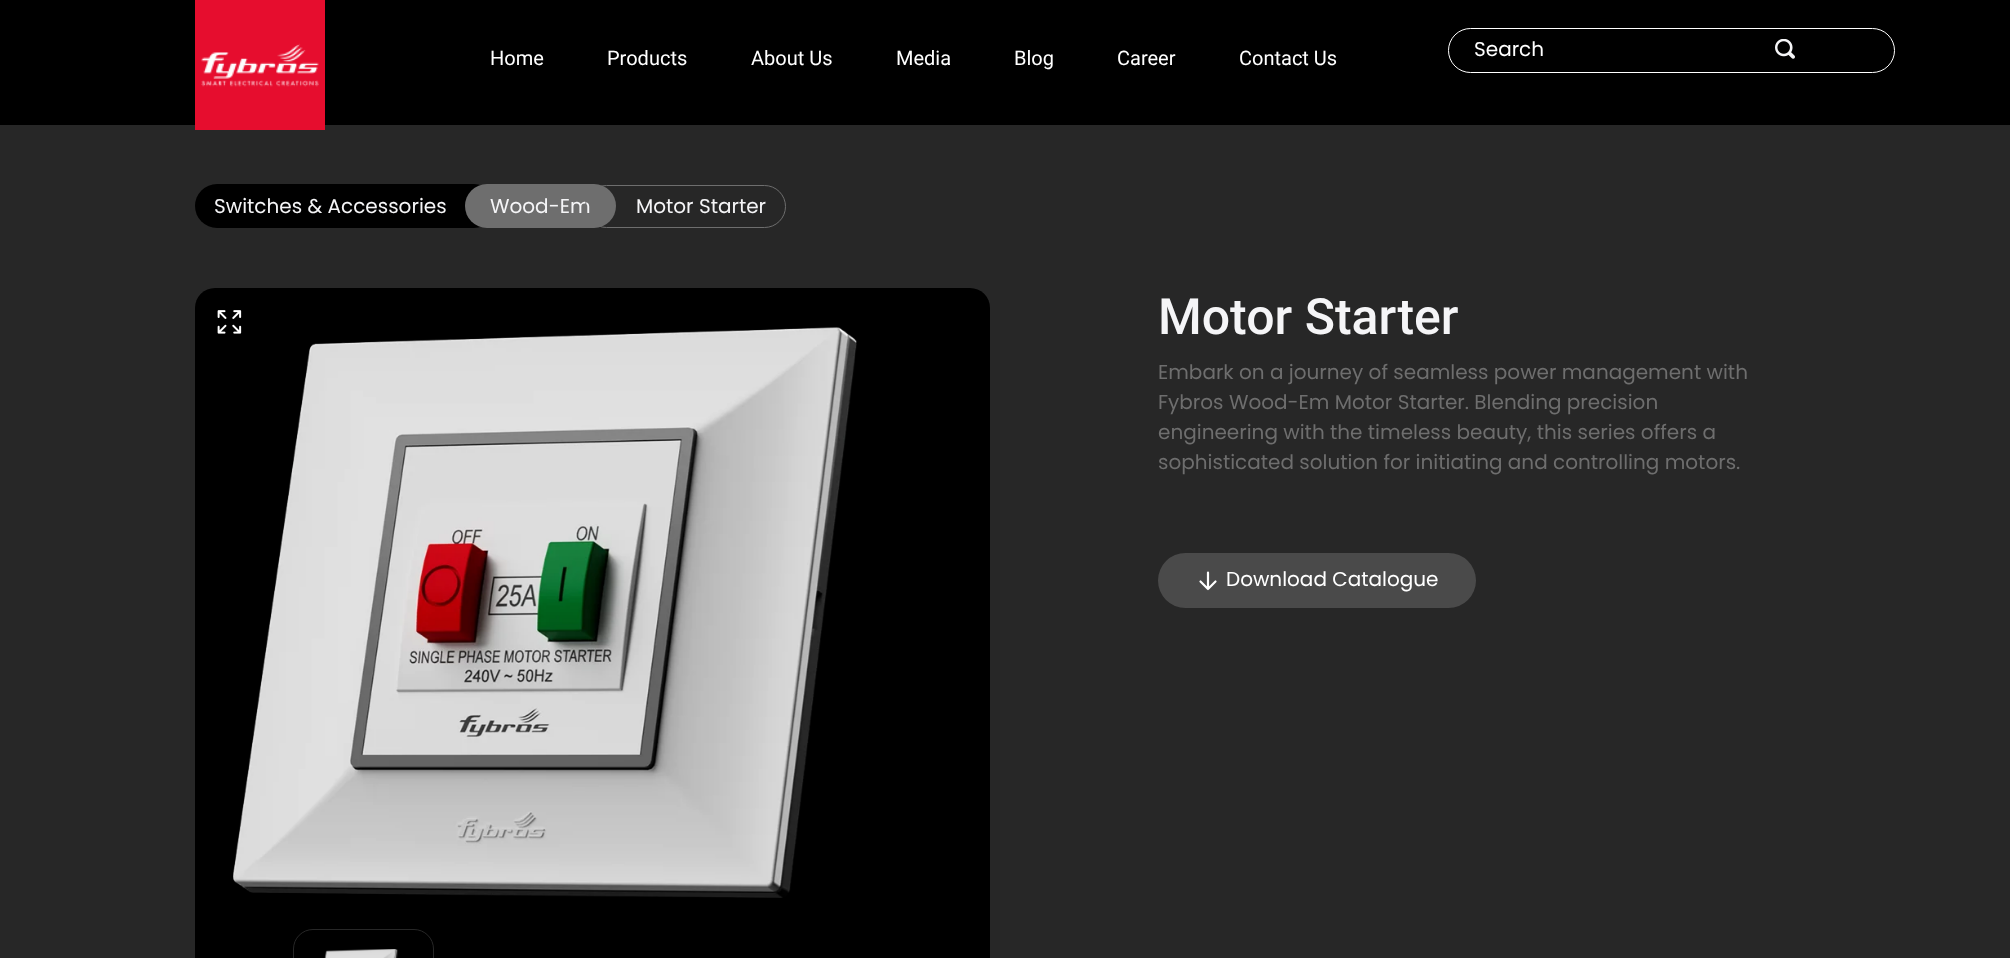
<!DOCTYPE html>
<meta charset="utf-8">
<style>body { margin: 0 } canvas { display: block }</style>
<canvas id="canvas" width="2010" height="958"></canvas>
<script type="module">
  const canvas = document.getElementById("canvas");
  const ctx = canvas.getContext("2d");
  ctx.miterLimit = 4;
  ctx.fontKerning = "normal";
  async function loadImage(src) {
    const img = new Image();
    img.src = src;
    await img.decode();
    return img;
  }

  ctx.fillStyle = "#000000";
  ctx.fillRect(0, 0, 2010, 958);
  ctx.fillStyle = "#272727";
  ctx.fillRect(0, 125, 2010, 833);
  ctx.drawImage(await loadImage("img1.png"), 195, 0, 130, 130);
  ctx.font = "20px Roboto";
  ctx.fillStyle = "#ffffff";
  ctx.fillText("Home", 490, 65);
  ctx.fillText("Products", 607, 65);
  ctx.fillText("About Us", 751, 65);
  ctx.fillText("Media", 896, 65);
  ctx.fillText("Blog", 1014, 65);
  ctx.fillText("Career", 1117, 65);
  ctx.fillText("Contact Us", 1239, 65);
  ctx.beginPath();
  ctx.roundRect(1448.5, 28.5, 446, 44, 22);
  ctx.strokeStyle = "#ffffff";
  ctx.stroke();
  ctx.font = "20px Poppins";
  ctx.fillText("Search", 1474, 56);
  ctx.drawImage(await loadImage("img2.png"), 1775, 39, 20, 20);
  ctx.fillStyle = "#000000";
  ctx.beginPath();
  ctx.roundRect(195, 184, 301, 44, 22);
  ctx.fill();
  ctx.fillStyle = "#f5f5f7";
  ctx.fillText("Switches & Accessories", 214, 213);
  ctx.fillStyle = "#6e6e6e";
  ctx.beginPath();
  ctx.roundRect(465, 184, 151, 44, 22);
  ctx.fill();
  ctx.fillStyle = "#f5f5f7";
  ctx.fillText("Wood-Em", 490, 213);
  ctx.beginPath();
  ctx.roundRect(585.5, 185.5, 200, 42, 21);
  ctx.strokeStyle = "#6e6e6e";
  ctx.stroke();
  ctx.fillText("Motor Starter", 636, 213);
  ctx.fillStyle = "#000000";
  ctx.beginPath();
  ctx.roundRect(195, 288, 795, 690, 20);
  ctx.fill();
  ctx.drawImage(await loadImage("img3.png"), 217, 310, 25, 24);
  ctx.drawImage(await loadImage("img4.png"), 233, 327, 624, 571);
  ctx.beginPath();
  ctx.roundRect(293.5, 929.5, 140, 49, 19.5);
  ctx.strokeStyle = "#272727";
  ctx.stroke();
  ctx.drawImage(await loadImage("img5.png"), 324, 949, 74, 9);
  ctx.font = "500 50px Roboto";
  ctx.fillStyle = "#f5f5f7";
  ctx.fillText("Motor Starter", 1158, 334);
  ctx.font = "20px Poppins";
  ctx.fillStyle = "#6e6e6e";
  ctx.fillText("Embark on a journey of seamless power management with", 1158, 379);
  ctx.fillText("Fybros Wood-Em Motor Starter. Blending precision", 1158, 409);
  ctx.fillText("engineering with the timeless beauty, this series offers a", 1158, 439);
  ctx.fillText("sophisticated solution for initiating and controlling motors.", 1158, 469);
  ctx.fillStyle = "#4a4a4a";
  ctx.beginPath();
  ctx.roundRect(1158, 553, 318, 55, 27.5);
  ctx.fill();
  ctx.beginPath();
  ctx.moveTo(1208, 572.5);
  ctx.lineTo(1208, 589);
  ctx.moveTo(1208, 589);
  ctx.lineTo(1215.5, 581.5);
  ctx.moveTo(1208, 589);
  ctx.lineTo(1200.5, 581.5);
  ctx.strokeStyle = "#ffffff";
  ctx.lineWidth = 2.2;
  ctx.lineCap = "round";
  ctx.lineJoin = "round";
  ctx.stroke();
  ctx.fillStyle = "#ffffff";
  ctx.fillText("Download Catalogue", 1226, 586);
</script>
